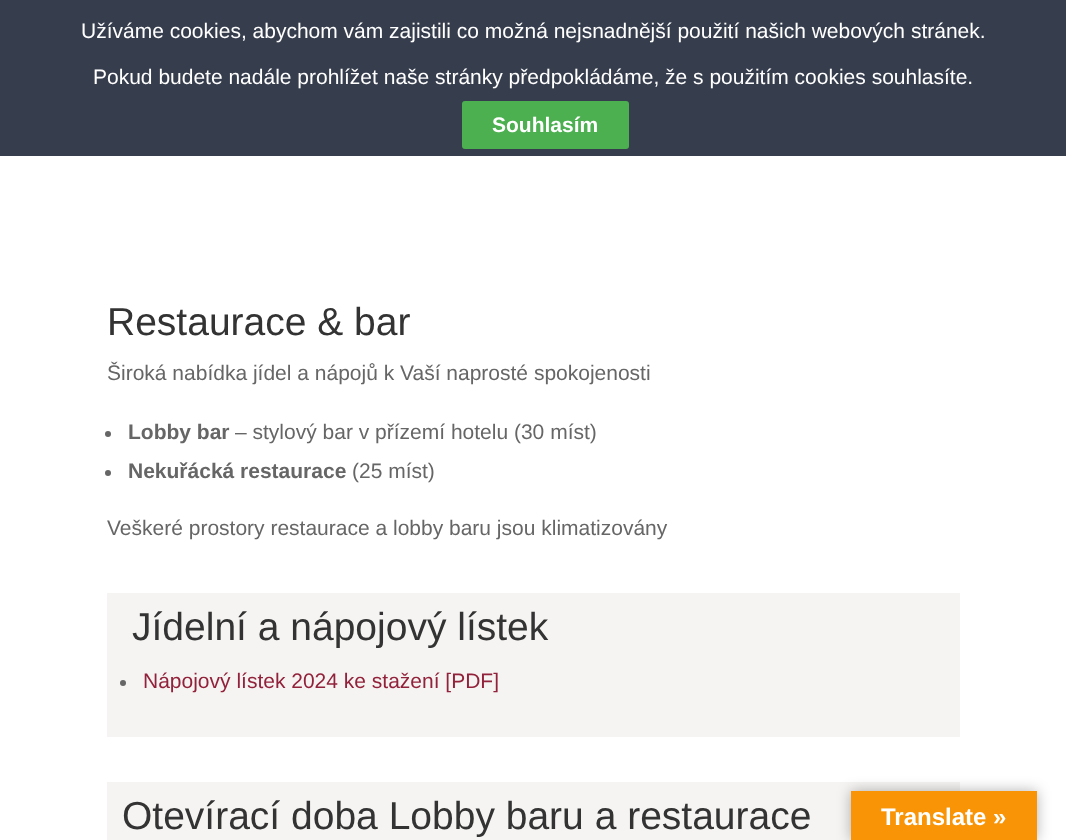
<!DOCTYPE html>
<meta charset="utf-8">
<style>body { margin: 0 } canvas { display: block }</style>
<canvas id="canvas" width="1066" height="840"></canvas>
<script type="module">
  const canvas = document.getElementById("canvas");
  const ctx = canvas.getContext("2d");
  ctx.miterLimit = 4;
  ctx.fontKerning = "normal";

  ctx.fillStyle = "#ffffff";
  ctx.fillRect(0, 0, 1066, 840);
  ctx.fillStyle = "#363d4d";
  ctx.fillRect(0, 0, 1066, 156);
  ctx.font = "21px Liberation Sans";
  ctx.fillStyle = "#ffffff";
  ctx.fillText("Užíváme cookies, abychom vám zajistili co možná nejsnadnější použití našich webových stránek.", 81, 38);
  ctx.fillText("Pokud budete nadále prohlížet naše stránky předpokládáme, že s použitím cookies souhlasíte.", 93, 84);
  ctx.fillStyle = "#4caf50";
  ctx.beginPath();
  ctx.roundRect(462, 101, 167, 48, 3);
  ctx.fill();
  ctx.font = "bold 21px Liberation Sans";
  ctx.fillStyle = "#ffffff";
  ctx.fillText("Souhlasím", 492, 132);
  ctx.font = "39px Arimo";
  ctx.fillStyle = "#333333";
  ctx.fillText("Restaurace & bar", 107, 335);
  ctx.font = "21px Arimo";
  ctx.fillStyle = "#666666";
  ctx.fillText("Široká nabídka jídel a nápojů k Vaší naprosté spokojenosti", 107, 380);
  ctx.beginPath();
  ctx.arc(108, 434, 3, 0, Math.PI * 2);
  ctx.fill();
  ctx.font = "bold 21px Arimo";
  ctx.fillText("Lobby bar", 128, 439);
  ctx.font = "21px Arimo";
  ctx.fillText("– stylový bar v přízemí hotelu (30 míst)", 235, 439);
  ctx.beginPath();
  ctx.arc(108, 473, 3, 0, Math.PI * 2);
  ctx.fill();
  ctx.font = "bold 21px Arimo";
  ctx.fillText("Nekuřácká restaurace", 128, 478);
  ctx.font = "21px Arimo";
  ctx.fillText("(25 míst)", 352, 478);
  ctx.fillText("Veškeré prostory restaurace a lobby baru jsou klimatizovány", 107, 535);
  ctx.fillStyle = "#f5f4f2";
  ctx.fillRect(107, 593, 853, 144);
  ctx.font = "39px Arimo";
  ctx.fillStyle = "#333333";
  ctx.fillText("Jídelní a nápojový lístek", 132, 640);
  ctx.fillStyle = "#666666";
  ctx.beginPath();
  ctx.arc(123, 683, 3, 0, Math.PI * 2);
  ctx.fill();
  ctx.font = "21px Arimo";
  ctx.fillStyle = "#92223b";
  ctx.fillText("Nápojový lístek 2024 ke stažení [PDF]", 143, 688);
  ctx.fillStyle = "#f5f4f2";
  ctx.fillRect(107, 782, 853, 58);
  ctx.font = "39px Arimo";
  ctx.fillStyle = "#333333";
  ctx.fillText("Otevírací doba Lobby baru a restaurace", 122, 829);
  ctx.fillStyle = "rgba(0, 0, 0, 0.3)";
  ctx.filter = "blur(7px)";
  ctx.beginPath();
  ctx.rect(851, 791, 186, 49);
  ctx.fill();
  ctx.filter = "none";
  ctx.fillStyle = "#f89406";
  ctx.fillRect(851, 791, 186, 49);
  ctx.font = "bold 24px Liberation Sans";
  ctx.fillStyle = "#ffffff";
  ctx.fillText("Translate »", 881, 825);
</script>
